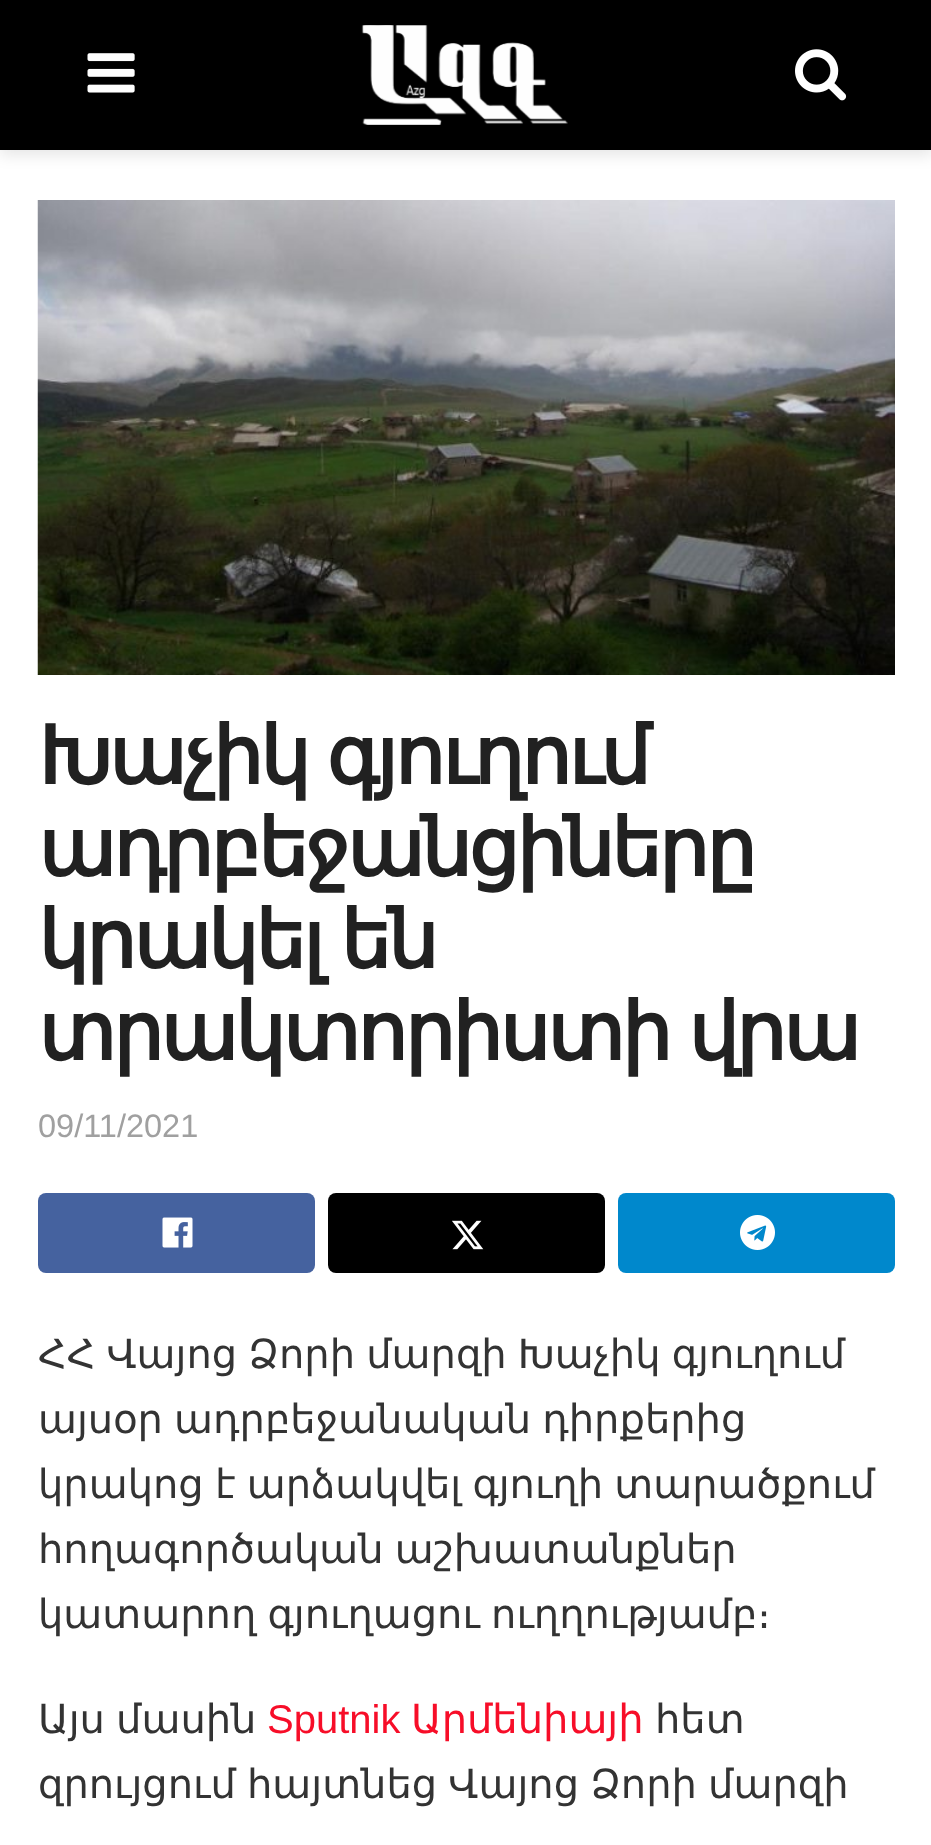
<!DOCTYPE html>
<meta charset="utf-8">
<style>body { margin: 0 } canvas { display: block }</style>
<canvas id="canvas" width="931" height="1845"></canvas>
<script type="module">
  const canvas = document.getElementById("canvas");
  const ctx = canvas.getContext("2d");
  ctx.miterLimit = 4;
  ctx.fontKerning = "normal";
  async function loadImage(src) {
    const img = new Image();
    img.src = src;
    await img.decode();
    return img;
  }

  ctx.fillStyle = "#ffffff";
  ctx.fillRect(0, 0, 931, 1845);
  ctx.fillStyle = "rgba(0, 0, 0, 0.1)";
  ctx.filter = "blur(7.5px)";
  ctx.beginPath();
  ctx.rect(0, 5, 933, 150);
  ctx.fill();
  ctx.filter = "none";
  ctx.fillStyle = "#000000";
  ctx.fillRect(0, 0, 931, 150);
  ctx.drawImage(await loadImage("img1.png"), 87, 53, 48, 40);
  ctx.drawImage(await loadImage("img2.png"), 361, 25, 207, 100);
  ctx.drawImage(await loadImage("img3.png"), 795, 49, 52, 52);
  ctx.drawImage(await loadImage("img4.png"), 37, 200, 858, 475);
  ctx.letterSpacing = "-3.25px";
  ctx.wordSpacing = "-3px";
  ctx.font = "bold 80px DejaVu Sans";
  ctx.fillStyle = "#212121";
  ctx.fillText("Խաչիկ գյուղում", 38, 784);
  ctx.wordSpacing = "0px";
  ctx.fillText("ադրբեջանցիները", 38, 876);
  ctx.wordSpacing = "-3px";
  ctx.fillText("կրակել են", 38, 968);
  ctx.fillText("տրակտորիստի վրա", 38, 1060);
  ctx.letterSpacing = "0px";
  ctx.wordSpacing = "0px";
  ctx.font = "32.5px Liberation Sans";
  ctx.fillStyle = "#a0a0a0";
  ctx.fillText("09/11/2021", 38, 1137);
  ctx.fillStyle = "#45629f";
  ctx.beginPath();
  ctx.roundRect(38, 1193, 277, 80, 8);
  ctx.fill();
  ctx.drawImage(await loadImage("img5.png"), 162, 1217, 31, 31);
  ctx.fillStyle = "#000000";
  ctx.beginPath();
  ctx.roundRect(328, 1193, 277, 80, 8);
  ctx.fill();
  ctx.drawImage(await loadImage("img6.png"), 452, 1220, 32, 30);
  ctx.fillStyle = "#0088cc";
  ctx.beginPath();
  ctx.roundRect(618, 1193, 277, 80, 8);
  ctx.fill();
  ctx.drawImage(await loadImage("img7.png"), 740, 1215, 35, 35);
  ctx.wordSpacing = "-1.5px";
  ctx.font = "40px DejaVu Sans";
  ctx.fillStyle = "#333333";
  ctx.fillText("ՀՀ Վայոց Ձորի մարզի Խաչիկ գյուղում", 38, 1368);
  ctx.fillText("այսօր ադրբեջանական դիրքերից", 38, 1433);
  ctx.fillText("կրակոց է արձակվել գյուղի տարածքում", 38, 1498);
  ctx.fillText("հողագործական աշխատանքներ", 38, 1563);
  ctx.fillText("կատարող գյուղացու ուղղությամբ։", 38, 1628);
  ctx.fillText("Այս մասին", 38, 1733);
  ctx.wordSpacing = "0px";
  ctx.font = "40px Liberation Sans";
  ctx.fillStyle = "#f70d28";
  ctx.fillText("Sputnik", 267, 1733);
  ctx.font = "40px DejaVu Sans";
  ctx.fillText("Արմենիայի", 411, 1733);
  ctx.fillStyle = "#333333";
  ctx.fillText("հետ", 655, 1733);
  ctx.wordSpacing = "-1.5px";
  ctx.fillText("զրույցում հայտնեց Վայոց Ձորի մարզի", 38, 1798);
</script>
